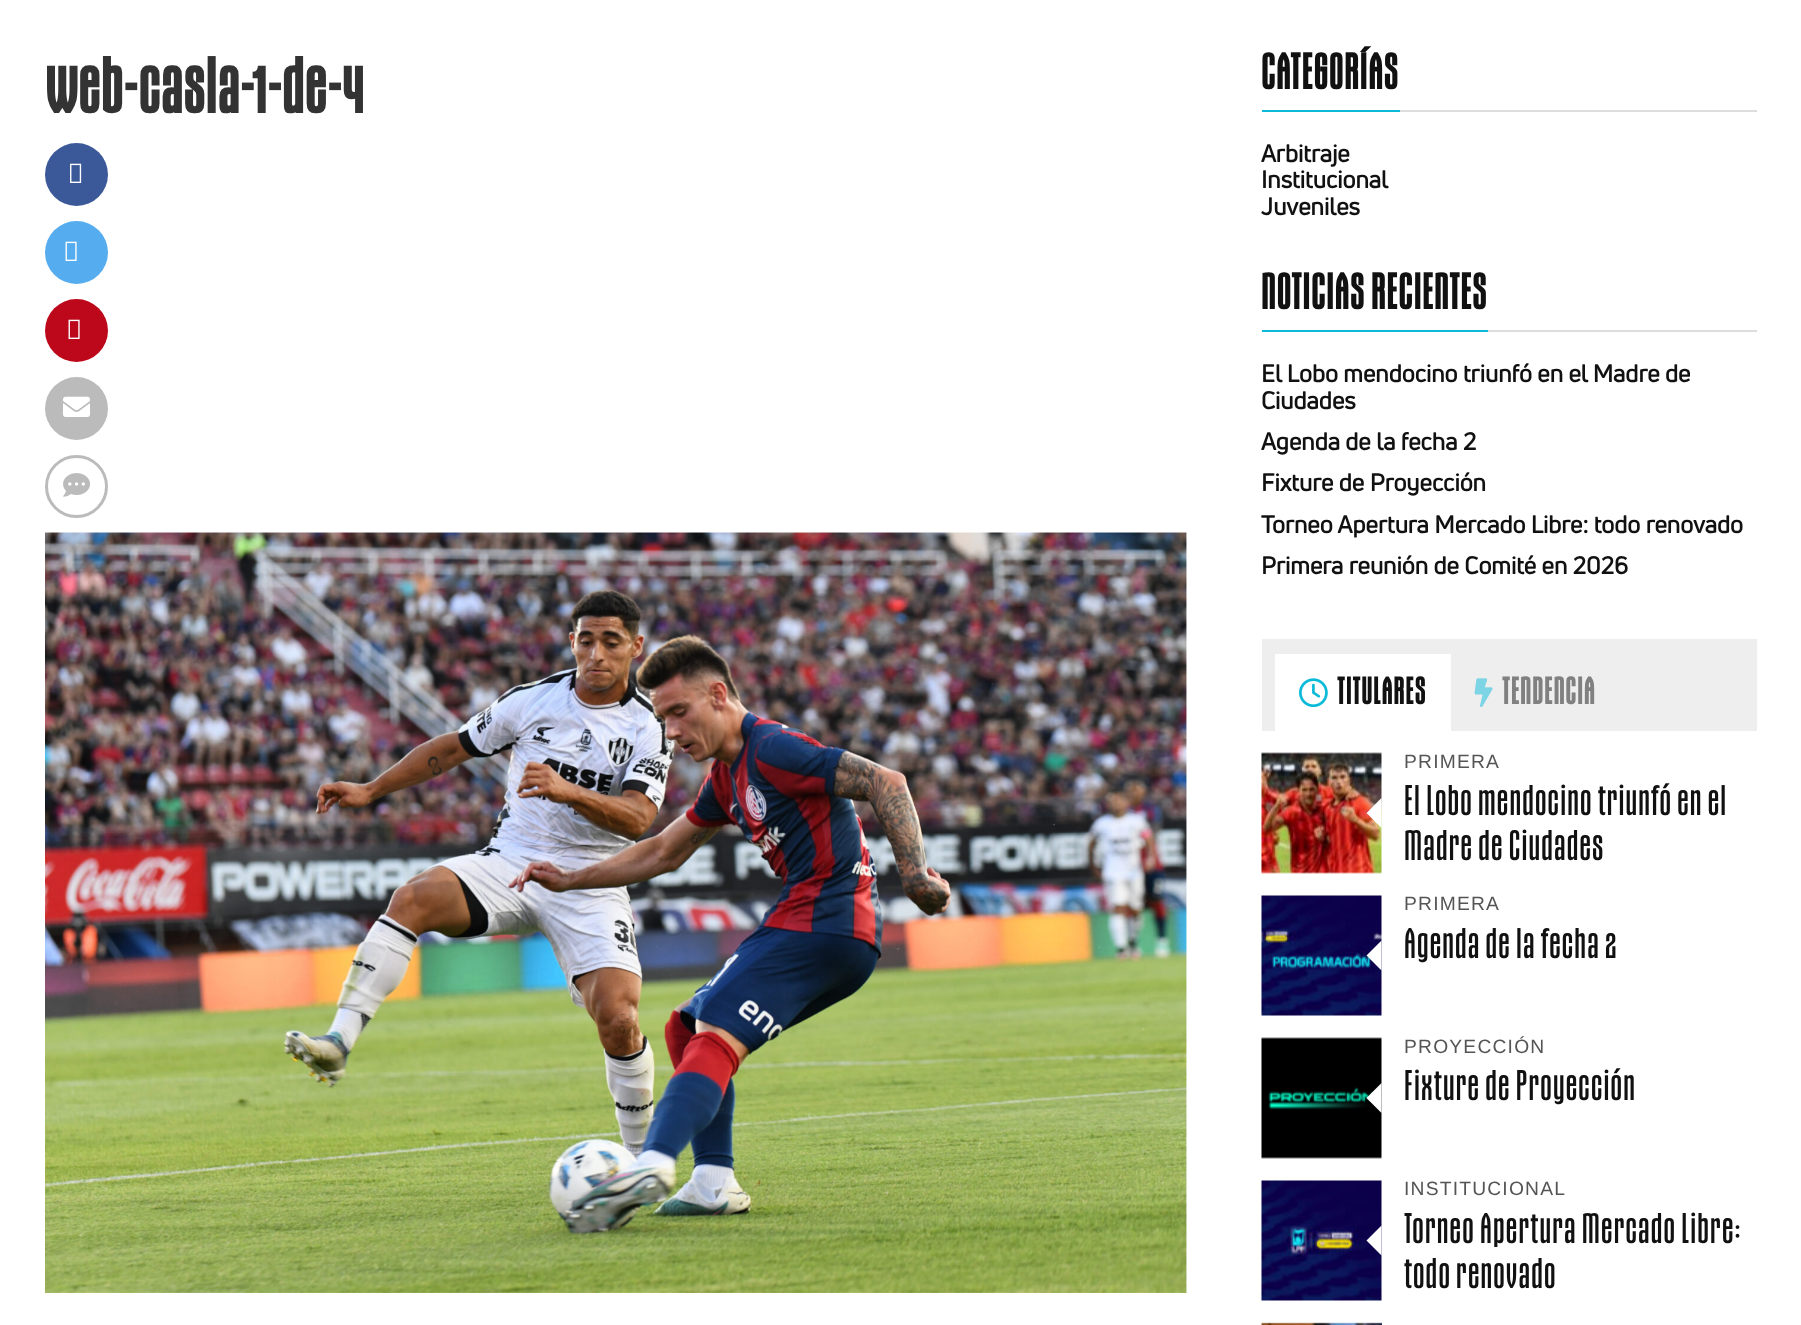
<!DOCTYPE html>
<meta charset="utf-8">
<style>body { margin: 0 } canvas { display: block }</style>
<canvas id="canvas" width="1801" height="1325"></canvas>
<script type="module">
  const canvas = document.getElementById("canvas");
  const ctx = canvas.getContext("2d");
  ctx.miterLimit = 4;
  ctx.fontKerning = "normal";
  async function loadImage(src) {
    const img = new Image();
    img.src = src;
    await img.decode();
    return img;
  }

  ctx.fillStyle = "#ffffff";
  ctx.fillRect(0, 0, 1801, 1325);
  ctx.letterSpacing = "1.5px";
  ctx.font = "bold 74.5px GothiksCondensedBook";
  ctx.fillStyle = "#333333";
  ctx.fillText("web-casla-1-de-4", 45, 113);
  ctx.fillStyle = "#3b5998";
  ctx.beginPath();
  ctx.arc(76.5, 174.5, 31.5, 0, Math.PI * 2);
  ctx.fill();
  ctx.drawImage(await loadImage("img1.png"), 70, 163, 12, 20);
  ctx.fillStyle = "#55acee";
  ctx.beginPath();
  ctx.arc(76.5, 252.5, 31.5, 0, Math.PI * 2);
  ctx.fill();
  ctx.drawImage(await loadImage("img2.png"), 65, 241, 12, 20);
  ctx.fillStyle = "#bd081c";
  ctx.beginPath();
  ctx.arc(76.5, 330.5, 31.5, 0, Math.PI * 2);
  ctx.fill();
  ctx.drawImage(await loadImage("img3.png"), 68, 319, 12, 20);
  ctx.fillStyle = "#bbbbbb";
  ctx.beginPath();
  ctx.arc(76.5, 408.5, 31.5, 0, Math.PI * 2);
  ctx.fill();
  ctx.drawImage(await loadImage("img4.png"), 63, 396, 27, 21);
  ctx.beginPath();
  ctx.arc(76.5, 486.5, 30, 0, Math.PI * 2);
  ctx.strokeStyle = "#bbbbbb";
  ctx.lineWidth = 3;
  ctx.stroke();
  ctx.drawImage(await loadImage("img5.png"), 63, 473, 27, 24);
  ctx.drawImage(await loadImage("img6.png"), 45, 532, 1142, 761);
  ctx.fillStyle = "#dddddd";
  ctx.fillRect(1400, 110, 357, 2);
  ctx.fillStyle = "#0bbad9";
  ctx.fillRect(1262, 110, 138, 2);
  ctx.font = "bold 48px GothiksCondensedBook";
  ctx.fillStyle = "#111111";
  ctx.fillText("CATEGORÍAS", 1261, 89);
  ctx.letterSpacing = "0px";
  ctx.font = "bold 24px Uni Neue";
  ctx.fillText("Arbitraje", 1261, 162);
  ctx.fillText("Institucional", 1261, 188);
  ctx.fillText("Juveniles", 1261, 215);
  ctx.fillStyle = "#dddddd";
  ctx.fillRect(1488, 330, 269, 2);
  ctx.fillStyle = "#0bbad9";
  ctx.fillRect(1262, 330, 226, 2);
  ctx.letterSpacing = "1.5px";
  ctx.font = "bold 48px GothiksCondensedBook";
  ctx.fillStyle = "#111111";
  ctx.fillText("NOTICIAS RECIENTES", 1261, 309);
  ctx.letterSpacing = "0px";
  ctx.font = "bold 24px Uni Neue";
  ctx.fillText("El Lobo mendocino triunfó en el Madre de", 1261, 382);
  ctx.fillText("Ciudades", 1261, 409);
  ctx.fillText("Agenda de la fecha 2", 1261, 450);
  ctx.fillText("Fixture de Proyección", 1261, 491);
  ctx.fillText("Torneo Apertura Mercado Libre: todo renovado", 1261, 533);
  ctx.fillText("Primera reunión de Comité en 2026", 1261, 574);
  ctx.fillStyle = "#eeeeee";
  ctx.fillRect(1262, 639, 495, 92);
  ctx.fillStyle = "#ffffff";
  ctx.fillRect(1275, 654, 176, 77);
  ctx.drawImage(await loadImage("img7.png"), 1299, 678, 29, 30);
  ctx.letterSpacing = "1.5px";
  ctx.font = "bold 36px GothiksCondensedBook";
  ctx.fillStyle = "#111111";
  ctx.fillText("TITULARES", 1337, 704);
  ctx.drawImage(await loadImage("img8.png"), 1474, 678, 19, 29);
  ctx.fillStyle = "#808080";
  ctx.fillText("TENDENCIA", 1502, 704);
  ctx.drawImage(await loadImage("img9.png"), 1261, 752, 121, 122);
  ctx.fillStyle = "#ffffff";
  ctx.beginPath();
  ctx.moveTo(1381.5, 798);
  ctx.lineTo(1381.5, 828);
  ctx.lineTo(1366.5, 813);
  ctx.closePath();
  ctx.fill();
  ctx.letterSpacing = "1.2px";
  ctx.font = "19.25px Liberation Sans";
  ctx.fillStyle = "#555555";
  ctx.fillText("PRIMERA", 1404, 768);
  ctx.font = "40.75px GothiksCondensedBook";
  ctx.fillStyle = "#111111";
  ctx.fillText("El Lobo mendocino triunfó en el", 1404, 815);
  ctx.fillText("Madre de Ciudades", 1404, 860);
  ctx.drawImage(await loadImage("img10.png"), 1261, 895, 121, 121);
  ctx.fillStyle = "#ffffff";
  ctx.beginPath();
  ctx.moveTo(1381.5, 940.5);
  ctx.lineTo(1381.5, 970.5);
  ctx.lineTo(1366.5, 955.5);
  ctx.closePath();
  ctx.fill();
  ctx.font = "19.25px Liberation Sans";
  ctx.fillStyle = "#555555";
  ctx.fillText("PRIMERA", 1404, 910);
  ctx.font = "40.75px GothiksCondensedBook";
  ctx.fillStyle = "#111111";
  ctx.fillText("Agenda de la fecha 2", 1404, 958);
  ctx.drawImage(await loadImage("img11.png"), 1261, 1037, 121, 122);
  ctx.fillStyle = "#ffffff";
  ctx.beginPath();
  ctx.moveTo(1381.5, 1083);
  ctx.lineTo(1381.5, 1113);
  ctx.lineTo(1366.5, 1098);
  ctx.closePath();
  ctx.fill();
  ctx.font = "19.25px Liberation Sans";
  ctx.fillStyle = "#555555";
  ctx.fillText("PROYECCIÓN", 1404, 1053);
  ctx.font = "40.75px GothiksCondensedBook";
  ctx.fillStyle = "#111111";
  ctx.fillText("Fixture de Proyección", 1404, 1100);
  ctx.drawImage(await loadImage("img12.png"), 1261, 1180, 121, 121);
  ctx.fillStyle = "#ffffff";
  ctx.beginPath();
  ctx.moveTo(1381.5, 1225.5);
  ctx.lineTo(1381.5, 1255.5);
  ctx.lineTo(1366.5, 1240.5);
  ctx.closePath();
  ctx.fill();
  ctx.font = "19.25px Liberation Sans";
  ctx.fillStyle = "#555555";
  ctx.fillText("INSTITUCIONAL", 1404, 1195);
  ctx.font = "40.75px GothiksCondensedBook";
  ctx.fillStyle = "#111111";
  ctx.fillText("Torneo Apertura Mercado Libre:", 1404, 1243);
  ctx.fillText("todo renovado", 1404, 1288);
  ctx.drawImage(await loadImage("img13.png"), 1261, 1322, 121, 3);
</script>
